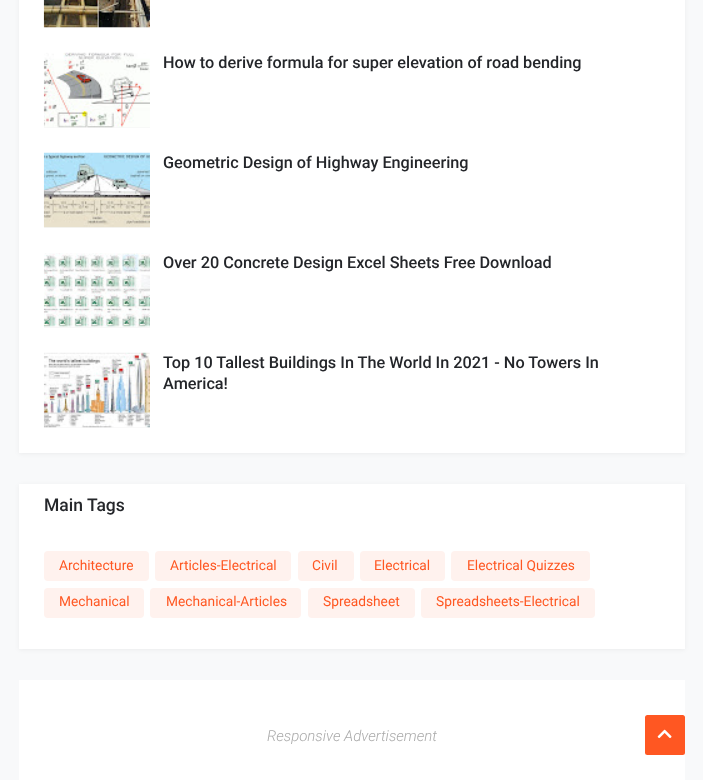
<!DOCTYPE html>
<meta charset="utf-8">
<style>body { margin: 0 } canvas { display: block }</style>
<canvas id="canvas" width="703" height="780"></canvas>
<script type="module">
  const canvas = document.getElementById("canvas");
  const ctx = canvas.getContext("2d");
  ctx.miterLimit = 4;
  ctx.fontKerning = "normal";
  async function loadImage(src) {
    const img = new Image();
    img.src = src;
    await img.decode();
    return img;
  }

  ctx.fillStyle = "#f8f9fa";
  ctx.fillRect(0, 0, 703, 780);
  ctx.fillStyle = "rgba(0, 0, 0, 0.05)";
  ctx.filter = "blur(2px)";
  ctx.beginPath();
  ctx.rect(19, -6, 666, 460);
  ctx.fill();
  ctx.filter = "none";
  ctx.fillStyle = "#ffffff";
  ctx.fillRect(19, 0, 666, 453);
  ctx.fillStyle = "#f7f7f7";
  ctx.fillRect(44, 27, 106, 1);
  ctx.drawImage(await loadImage("img1.png"), 43, 0, 107, 28);
  ctx.fillRect(44, 127, 106, 1);
  ctx.drawImage(await loadImage("img2.png"), 43, 52, 107, 76);
  ctx.font = "500 16.25px Roboto";
  ctx.fillStyle = "#24262a";
  ctx.fillText("How to derive formula for super elevation of road bending", 163, 68);
  ctx.fillStyle = "#f7f7f7";
  ctx.fillRect(44, 227, 106, 1);
  ctx.drawImage(await loadImage("img3.png"), 43, 152, 107, 76);
  ctx.fillStyle = "#24262a";
  ctx.fillText("Geometric Design of Highway Engineering", 163, 168);
  ctx.fillStyle = "#f7f7f7";
  ctx.fillRect(44, 327, 106, 1);
  ctx.drawImage(await loadImage("img4.png"), 43, 253, 107, 74);
  ctx.fillStyle = "#24262a";
  ctx.fillText("Over 20 Concrete Design Excel Sheets Free Download", 163, 268);
  ctx.fillStyle = "#f7f7f7";
  ctx.fillRect(44, 427, 106, 1);
  ctx.drawImage(await loadImage("img5.png"), 43, 352, 107, 76);
  ctx.fillStyle = "#24262a";
  ctx.fillText("Top 10 Tallest Buildings In The World In 2021 - No Towers In", 163, 368);
  ctx.fillText("America!", 163, 389);
  ctx.fillStyle = "rgba(0, 0, 0, 0.05)";
  ctx.filter = "blur(2px)";
  ctx.beginPath();
  ctx.rect(19, 485, 666, 165);
  ctx.fill();
  ctx.filter = "none";
  ctx.fillStyle = "#ffffff";
  ctx.fillRect(19, 484, 666, 165);
  ctx.font = "500 17.5px Roboto";
  ctx.fillStyle = "#24262a";
  ctx.fillText("Main Tags", 44, 511);
  ctx.fillStyle = "#fff2ee";
  ctx.beginPath();
  ctx.roundRect(44, 551, 105, 30, 4);
  ctx.fill();
  ctx.font = "13.75px Roboto";
  ctx.fillStyle = "#ff5722";
  ctx.fillText("Architecture", 59, 570);
  ctx.fillStyle = "#fff2ee";
  ctx.beginPath();
  ctx.roundRect(155, 551, 136, 30, 4);
  ctx.fill();
  ctx.fillStyle = "#ff5722";
  ctx.fillText("Articles-Electrical", 170, 570);
  ctx.fillStyle = "#fff2ee";
  ctx.beginPath();
  ctx.roundRect(298, 551, 56, 30, 4);
  ctx.fill();
  ctx.fillStyle = "#ff5722";
  ctx.fillText("Civil", 312, 570);
  ctx.fillStyle = "#fff2ee";
  ctx.beginPath();
  ctx.roundRect(360, 551, 85, 30, 4);
  ctx.fill();
  ctx.fillStyle = "#ff5722";
  ctx.fillText("Electrical", 374, 570);
  ctx.fillStyle = "#fff2ee";
  ctx.beginPath();
  ctx.roundRect(451, 551, 139, 30, 4);
  ctx.fill();
  ctx.fillStyle = "#ff5722";
  ctx.fillText("Electrical Quizzes", 467, 570);
  ctx.fillStyle = "#fff2ee";
  ctx.beginPath();
  ctx.roundRect(44, 588, 100, 30, 4);
  ctx.fill();
  ctx.fillStyle = "#ff5722";
  ctx.fillText("Mechanical", 59, 606);
  ctx.fillStyle = "#fff2ee";
  ctx.beginPath();
  ctx.roundRect(150, 588, 151, 30, 4);
  ctx.fill();
  ctx.fillStyle = "#ff5722";
  ctx.fillText("Mechanical-Articles", 166, 606);
  ctx.fillStyle = "#fff2ee";
  ctx.beginPath();
  ctx.roundRect(308, 588, 107, 30, 4);
  ctx.fill();
  ctx.fillStyle = "#ff5722";
  ctx.fillText("Spreadsheet", 323, 606);
  ctx.fillStyle = "#fff2ee";
  ctx.beginPath();
  ctx.roundRect(421, 588, 174, 30, 4);
  ctx.fill();
  ctx.fillStyle = "#ff5722";
  ctx.fillText("Spreadsheets-Electrical", 436, 606);
  ctx.fillStyle = "#ffffff";
  ctx.fillRect(19, 680, 666, 100);
  ctx.font = "italic 300 15px Roboto";
  ctx.fillStyle = "#aaaaaa";
  ctx.fillText("Responsive Advertisement", 267, 741);
  ctx.fillStyle = "#ff5722";
  ctx.beginPath();
  ctx.roundRect(645, 715, 40, 40, 2.5);
  ctx.fill();
  ctx.drawImage(await loadImage("img6.png"), 657, 729, 15, 10);
</script>
